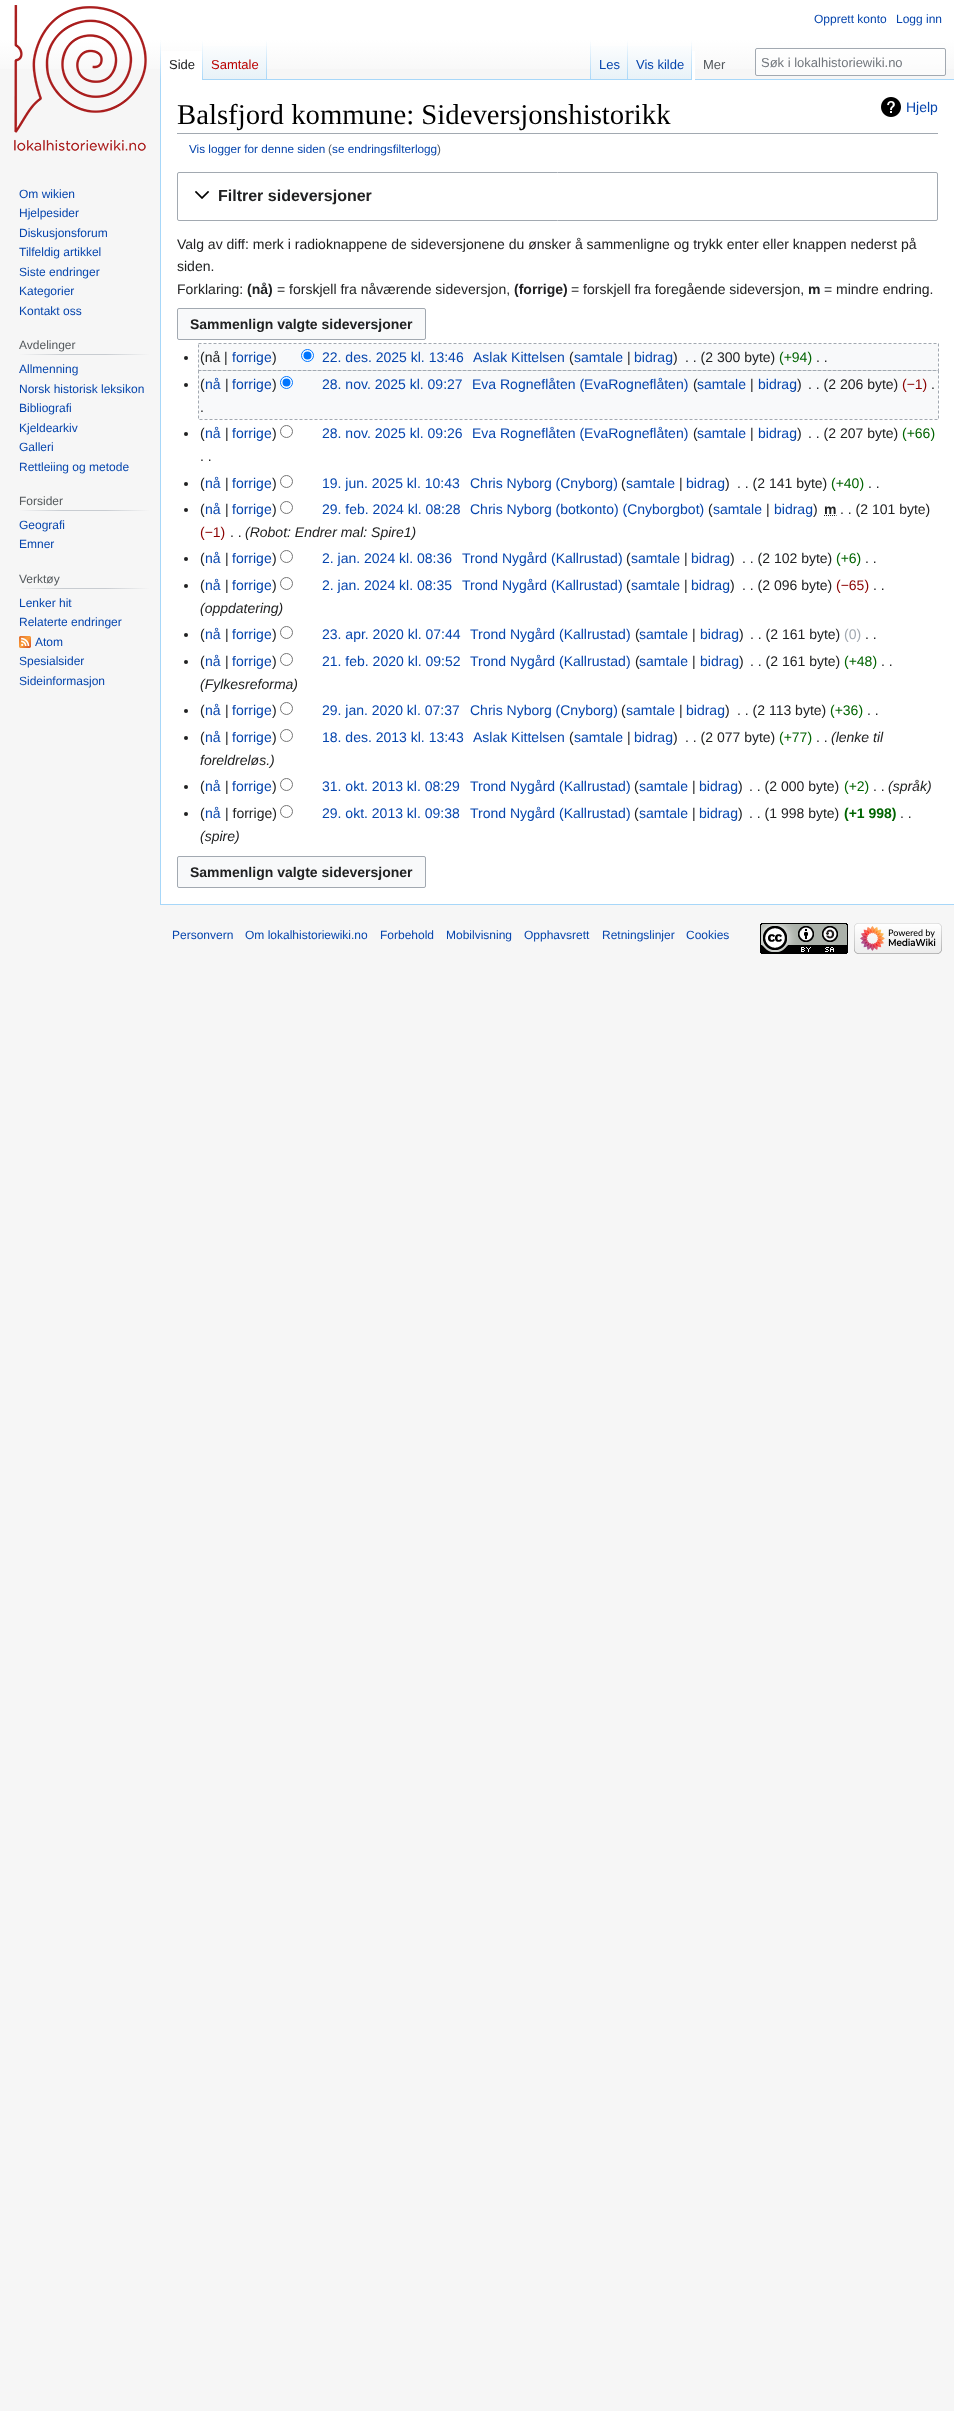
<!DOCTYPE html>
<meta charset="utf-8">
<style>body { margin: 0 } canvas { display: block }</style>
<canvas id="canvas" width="954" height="2411"></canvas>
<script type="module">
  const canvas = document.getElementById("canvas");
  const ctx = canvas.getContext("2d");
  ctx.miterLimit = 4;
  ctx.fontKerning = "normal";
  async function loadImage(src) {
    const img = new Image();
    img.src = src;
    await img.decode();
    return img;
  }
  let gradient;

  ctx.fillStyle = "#f6f6f6";
  ctx.fillRect(0, 0, 954, 2411);
  gradient = ctx.createLinearGradient(477, 0, 477, 80);
  gradient.addColorStop(0.5, "#ffffff");
  gradient.addColorStop(1, "#f6f6f6");
  ctx.fillStyle = gradient;
  ctx.fillRect(0, 0, 954, 69);
  ctx.font = "12px Liberation Sans";
  ctx.fillStyle = "#0645ad";
  ctx.fillText("Opprett konto", 814, 23);
  ctx.fillText("Logg inn", 896, 23);
  ctx.fillStyle = "#a7d7f9";
  ctx.fillRect(160, 904, 794, 1);
  ctx.fillRect(160, 79, 1, 826);
  gradient = ctx.createLinearGradient(161, 40, 161, 80);
  gradient.addColorStop(0, "rgba(167, 215, 249, 0)");
  gradient.addColorStop(1, "#a7d7f9");
  ctx.fillStyle = gradient;
  ctx.fillRect(160, 40, 1, 40);
  ctx.fillStyle = "#ffffff";
  ctx.fillRect(161, 51, 41, 29);
  gradient = ctx.createLinearGradient(203, 40, 203, 80);
  gradient.addColorStop(0, "#ffffff");
  gradient.addColorStop(1, "#a7d7f9");
  ctx.fillStyle = gradient;
  ctx.fillRect(202, 40, 1, 40);
  ctx.font = "13px Liberation Sans";
  ctx.fillStyle = "#202122";
  ctx.fillText("Side", 169, 69);
  gradient = ctx.createLinearGradient(235, 80, 235, 40);
  gradient.addColorStop(0, "#77c1f6");
  gradient.addColorStop(0.03, "#e8f2f8");
  gradient.addColorStop(1, "#ffffff");
  ctx.fillStyle = gradient;
  ctx.fillRect(203, 46, 64, 34);
  gradient = ctx.createLinearGradient(267, 40, 267, 80);
  gradient.addColorStop(0, "rgba(167, 215, 249, 0)");
  gradient.addColorStop(1, "#a7d7f9");
  ctx.fillStyle = gradient;
  ctx.fillRect(266, 40, 1, 40);
  ctx.fillStyle = "#ba0000";
  ctx.fillText("Samtale", 211, 69);
  ctx.fillStyle = "#a7d7f9";
  ctx.fillRect(267, 79, 687, 1);
  gradient = ctx.createLinearGradient(591, 40, 591, 80);
  gradient.addColorStop(0, "rgba(167, 215, 249, 0)");
  gradient.addColorStop(1, "#a7d7f9");
  ctx.fillStyle = gradient;
  ctx.fillRect(590, 40, 1, 40);
  gradient = ctx.createLinearGradient(610, 80, 610, 40);
  gradient.addColorStop(0, "#77c1f6");
  gradient.addColorStop(0.03, "#e8f2f8");
  gradient.addColorStop(1, "#ffffff");
  ctx.fillStyle = gradient;
  ctx.fillRect(591, 46, 37, 33);
  gradient = ctx.createLinearGradient(628, 40, 628, 80);
  gradient.addColorStop(0, "rgba(167, 215, 249, 0)");
  gradient.addColorStop(1, "#a7d7f9");
  ctx.fillStyle = gradient;
  ctx.fillRect(627, 40, 1, 40);
  ctx.fillStyle = "#0645ad";
  ctx.fillText("Les", 599, 69);
  gradient = ctx.createLinearGradient(660, 80, 660, 40);
  gradient.addColorStop(0, "#77c1f6");
  gradient.addColorStop(0.03, "#e8f2f8");
  gradient.addColorStop(1, "#ffffff");
  ctx.fillStyle = gradient;
  ctx.fillRect(628, 46, 64, 33);
  gradient = ctx.createLinearGradient(692, 40, 692, 80);
  gradient.addColorStop(0, "rgba(167, 215, 249, 0)");
  gradient.addColorStop(1, "#a7d7f9");
  ctx.fillStyle = gradient;
  ctx.fillRect(691, 40, 1, 40);
  ctx.fillStyle = "#0645ad";
  ctx.fillText("Vis kilde", 636, 69);
  ctx.fillStyle = "#ffffff";
  ctx.fillRect(692, 51, 3, 29);
  ctx.fillStyle = "#54595d";
  ctx.fillText("Mer", 703, 69);
  ctx.fillStyle = "rgba(255, 255, 255, 0.5)";
  ctx.beginPath();
  ctx.roundRect(755.5, 48.5, 190, 27, 1.5);
  ctx.fill();
  ctx.strokeStyle = "#a2a9b1";
  ctx.stroke();
  ctx.fillStyle = "#72777d";
  ctx.fillText("Søk i lokalhistoriewiki.no", 761, 67);
  ctx.drawImage(await loadImage("img1.png"), 14, 5, 133, 146);
  ctx.font = "12px Liberation Sans";
  ctx.fillStyle = "#0645ad";
  ctx.fillText("Om wikien", 19, 198);
  ctx.fillText("Hjelpesider", 19, 217);
  ctx.fillText("Diskusjonsforum", 19, 237);
  ctx.fillText("Tilfeldig artikkel", 19, 256);
  ctx.fillText("Siste endringer", 19, 276);
  ctx.fillText("Kategorier", 19, 295);
  ctx.fillText("Kontakt oss", 19, 315);
  gradient = ctx.createLinearGradient(19, 355, 150, 355);
  gradient.addColorStop(0, "#f6f6f6");
  gradient.addColorStop(0.33, "#c8ccd1");
  gradient.addColorStop(0.66, "#c8ccd1");
  gradient.addColorStop(1, "#f6f6f6");
  ctx.fillStyle = gradient;
  ctx.fillRect(19, 354, 131, 1);
  ctx.fillStyle = "#54595d";
  ctx.fillText("Avdelinger", 19, 349);
  ctx.fillStyle = "#0645ad";
  ctx.fillText("Allmenning", 19, 373);
  ctx.fillText("Norsk historisk leksikon", 19, 393);
  ctx.fillText("Bibliografi", 19, 412);
  ctx.fillText("Kjeldearkiv", 19, 432);
  ctx.fillText("Galleri", 19, 451);
  ctx.fillText("Rettleiing og metode", 19, 471);
  gradient = ctx.createLinearGradient(19, 511, 150, 511);
  gradient.addColorStop(0, "#f6f6f6");
  gradient.addColorStop(0.33, "#c8ccd1");
  gradient.addColorStop(0.66, "#c8ccd1");
  gradient.addColorStop(1, "#f6f6f6");
  ctx.fillStyle = gradient;
  ctx.fillRect(19, 510, 131, 1);
  ctx.fillStyle = "#54595d";
  ctx.fillText("Forsider", 19, 505);
  ctx.fillStyle = "#0645ad";
  ctx.fillText("Geografi", 19, 529);
  ctx.fillText("Emner", 19, 548);
  gradient = ctx.createLinearGradient(19, 589, 150, 589);
  gradient.addColorStop(0, "#f6f6f6");
  gradient.addColorStop(0.33, "#c8ccd1");
  gradient.addColorStop(0.66, "#c8ccd1");
  gradient.addColorStop(1, "#f6f6f6");
  ctx.fillStyle = gradient;
  ctx.fillRect(19, 588, 131, 1);
  ctx.fillStyle = "#54595d";
  ctx.fillText("Verktøy", 19, 583);
  ctx.fillStyle = "#0645ad";
  ctx.fillText("Lenker hit", 19, 607);
  ctx.fillText("Relaterte endringer", 19, 626);
  ctx.drawImage(await loadImage("img2.png"), 19, 636, 12, 12);
  ctx.fillText("Atom", 35, 646);
  ctx.fillText("Spesialsider", 19, 665);
  ctx.fillText("Sideinformasjon", 19, 685);
  ctx.fillStyle = "#ffffff";
  ctx.fillRect(161, 80, 793, 824);
  ctx.fillStyle = "#a2a9b1";
  ctx.fillRect(177, 133, 761, 1);
  ctx.font = "28.75px Liberation Serif";
  ctx.fillStyle = "#000000";
  ctx.fillText("Balsfjord kommune: Sideversjonshistorikk", 177, 124);
  ctx.drawImage(await loadImage("img3.png"), 881, 97, 20, 20);
  ctx.font = "14px Liberation Sans";
  ctx.fillStyle = "#0645ad";
  ctx.fillText("Hjelp", 906, 112);
  ctx.font = "11.75px Liberation Sans";
  ctx.fillText("Vis logger for denne siden", 189, 153);
  ctx.fillStyle = "#54595d";
  ctx.fillText("(", 328, 153);
  ctx.fillStyle = "#0645ad";
  ctx.fillText("se endringsfilterlogg", 332, 153);
  ctx.fillStyle = "#54595d";
  ctx.fillText(")", 437, 153);
  ctx.beginPath();
  ctx.roundRect(177.5, 172.5, 760, 48, 1.5);
  ctx.stroke();
  ctx.drawImage(await loadImage("img4.png"), 195, 191, 15, 8);
  ctx.font = "bold 16px Liberation Sans";
  ctx.fillStyle = "#202122";
  ctx.fillText("Filtrer sideversjoner", 218, 201);
  ctx.font = "14px Liberation Sans";
  ctx.fillText("Valg av diff: merk i radioknappene de sideversjonene du ønsker å sammenligne og trykk enter eller knappen nederst på", 177, 249);
  ctx.fillText("siden.", 177, 271);
  ctx.fillText("Forklaring:", 177, 294);
  ctx.font = "bold 14px Liberation Sans";
  ctx.fillText("(nå)", 247, 294);
  ctx.font = "14px Liberation Sans";
  ctx.fillText("= forskjell fra nåværende sideversjon,", 277, 294);
  ctx.font = "bold 14px Liberation Sans";
  ctx.fillText("(forrige)", 514, 294);
  ctx.font = "14px Liberation Sans";
  ctx.fillText("= forskjell fra foregående sideversjon,", 571, 294);
  ctx.font = "bold 14px Liberation Sans";
  ctx.fillText("m", 808, 294);
  ctx.font = "14px Liberation Sans";
  ctx.fillText("= mindre endring.", 824, 294);
  ctx.fillStyle = "#f8f9fa";
  ctx.beginPath();
  ctx.roundRect(177.5, 308.5, 248, 31, 1.5);
  ctx.fill();
  ctx.stroke();
  ctx.font = "bold 14px Liberation Sans";
  ctx.fillStyle = "#202122";
  ctx.fillText("Sammenlign valgte sideversjoner", 190, 329);
  ctx.fillStyle = "#f8f9fa";
  ctx.fillRect(199, 344, 739, 26);
  ctx.font = "14px Liberation Sans";
  ctx.fillStyle = "#202122";
  ctx.fillText("(nå |", 200, 362);
  ctx.fillStyle = "#0645ad";
  ctx.fillText("forrige", 232, 362);
  ctx.fillStyle = "#202122";
  ctx.fillText(")", 272, 362);
  ctx.fillStyle = "#ffffff";
  ctx.beginPath();
  ctx.arc(307.5, 355.5, 6, 0, Math.PI * 2);
  ctx.fill();
  ctx.strokeStyle = "#0075ff";
  ctx.stroke();
  ctx.fillStyle = "#0075ff";
  ctx.beginPath();
  ctx.arc(307.5, 355.5, 4, 0, Math.PI * 2);
  ctx.fill();
  ctx.fillStyle = "#0645ad";
  ctx.fillText("22. des. 2025 kl. 13:46", 322, 362);
  ctx.fillText("Aslak Kittelsen", 473, 362);
  ctx.fillStyle = "#202122";
  ctx.fillText("(", 569, 362);
  ctx.fillStyle = "#0645ad";
  ctx.fillText("samtale", 574, 362);
  ctx.fillStyle = "#202122";
  ctx.fillText("|", 627, 362);
  ctx.fillStyle = "#0645ad";
  ctx.fillText("bidrag", 634, 362);
  ctx.fillStyle = "#202122";
  ctx.fillText(")", 673, 362);
  ctx.fillText(". . (2 300 byte)", 685, 362);
  ctx.fillStyle = "#006400";
  ctx.fillText("(+94)", 779, 362);
  ctx.fillStyle = "#202122";
  ctx.fillText(". .", 816, 362);
  ctx.beginPath();
  ctx.moveTo(198.5, 343.5);
  ctx.lineTo(938.5, 343.5);
  ctx.lineTo(938.5, 370.5);
  ctx.lineTo(198.5, 370.5);
  ctx.closePath();
  ctx.strokeStyle = "#a2a9b1";
  ctx.setLineDash([3, 2]);
  ctx.stroke();
  ctx.beginPath();
  ctx.arc(186, 358, 2, 0, Math.PI * 2);
  ctx.fill();
  ctx.fillStyle = "#f8f9fa";
  ctx.fillRect(199, 371, 739, 48);
  ctx.fillStyle = "#202122";
  ctx.fillText("(", 200, 389);
  ctx.fillStyle = "#0645ad";
  ctx.fillText("nå", 205, 389);
  ctx.fillStyle = "#202122";
  ctx.fillText("|", 225, 389);
  ctx.fillStyle = "#0645ad";
  ctx.fillText("forrige", 232, 389);
  ctx.fillStyle = "#202122";
  ctx.fillText(")", 272, 389);
  ctx.fillStyle = "#ffffff";
  ctx.beginPath();
  ctx.arc(286.5, 382.5, 6, 0, Math.PI * 2);
  ctx.fill();
  ctx.strokeStyle = "#0075ff";
  ctx.setLineDash([]);
  ctx.stroke();
  ctx.fillStyle = "#0075ff";
  ctx.beginPath();
  ctx.arc(286.5, 382.5, 4, 0, Math.PI * 2);
  ctx.fill();
  ctx.fillStyle = "#0645ad";
  ctx.fillText("28. nov. 2025 kl. 09:27", 322, 389);
  ctx.fillText("Eva Rogneflåten (EvaRogneflåten)", 472, 389);
  ctx.fillStyle = "#202122";
  ctx.fillText("(", 693, 389);
  ctx.fillStyle = "#0645ad";
  ctx.fillText("samtale", 697, 389);
  ctx.fillStyle = "#202122";
  ctx.fillText("|", 750, 389);
  ctx.fillStyle = "#0645ad";
  ctx.fillText("bidrag", 758, 389);
  ctx.fillStyle = "#202122";
  ctx.fillText(")", 797, 389);
  ctx.fillText(". . (2 206 byte)", 808, 389);
  ctx.fillStyle = "#8b0000";
  ctx.fillText("(−1)", 902, 389);
  ctx.fillStyle = "#202122";
  ctx.fillText(".", 931, 389);
  ctx.fillText(".", 200, 412);
  ctx.beginPath();
  ctx.moveTo(198.5, 370.5);
  ctx.lineTo(938.5, 370.5);
  ctx.lineTo(938.5, 419.5);
  ctx.lineTo(198.5, 419.5);
  ctx.closePath();
  ctx.strokeStyle = "#a2a9b1";
  ctx.setLineDash([3, 2]);
  ctx.stroke();
  ctx.beginPath();
  ctx.arc(186, 385, 2, 0, Math.PI * 2);
  ctx.fill();
  ctx.beginPath();
  ctx.arc(186, 434, 2, 0, Math.PI * 2);
  ctx.fill();
  ctx.fillText("(", 200, 438);
  ctx.fillStyle = "#0645ad";
  ctx.fillText("nå", 205, 438);
  ctx.fillStyle = "#202122";
  ctx.fillText("|", 225, 438);
  ctx.fillStyle = "#0645ad";
  ctx.fillText("forrige", 232, 438);
  ctx.fillStyle = "#202122";
  ctx.fillText(")", 272, 438);
  ctx.beginPath();
  ctx.arc(286.5, 431.5, 6, 0, Math.PI * 2);
  ctx.strokeStyle = "#767676";
  ctx.setLineDash([]);
  ctx.stroke();
  ctx.fillStyle = "#0645ad";
  ctx.fillText("28. nov. 2025 kl. 09:26", 322, 438);
  ctx.fillText("Eva Rogneflåten (EvaRogneflåten)", 472, 438);
  ctx.fillStyle = "#202122";
  ctx.fillText("(", 693, 438);
  ctx.fillStyle = "#0645ad";
  ctx.fillText("samtale", 697, 438);
  ctx.fillStyle = "#202122";
  ctx.fillText("|", 750, 438);
  ctx.fillStyle = "#0645ad";
  ctx.fillText("bidrag", 758, 438);
  ctx.fillStyle = "#202122";
  ctx.fillText(")", 797, 438);
  ctx.fillText(". . (2 207 byte)", 808, 438);
  ctx.fillStyle = "#006400";
  ctx.fillText("(+66)", 902, 438);
  ctx.fillStyle = "#202122";
  ctx.fillText(". .", 200, 461);
  ctx.beginPath();
  ctx.arc(186, 484, 2, 0, Math.PI * 2);
  ctx.fill();
  ctx.fillText("(", 200, 488);
  ctx.fillStyle = "#0645ad";
  ctx.fillText("nå", 205, 488);
  ctx.fillStyle = "#202122";
  ctx.fillText("|", 225, 488);
  ctx.fillStyle = "#0645ad";
  ctx.fillText("forrige", 232, 488);
  ctx.fillStyle = "#202122";
  ctx.fillText(")", 272, 488);
  ctx.beginPath();
  ctx.arc(286.5, 481.5, 6, 0, Math.PI * 2);
  ctx.stroke();
  ctx.fillStyle = "#0645ad";
  ctx.fillText("19. jun. 2025 kl. 10:43", 322, 488);
  ctx.fillText("Chris Nyborg (Cnyborg)", 470, 488);
  ctx.fillStyle = "#202122";
  ctx.fillText("(", 621, 488);
  ctx.fillStyle = "#0645ad";
  ctx.fillText("samtale", 626, 488);
  ctx.fillStyle = "#202122";
  ctx.fillText("|", 679, 488);
  ctx.fillStyle = "#0645ad";
  ctx.fillText("bidrag", 686, 488);
  ctx.fillStyle = "#202122";
  ctx.fillText(")", 725, 488);
  ctx.fillText(". . (2 141 byte)", 737, 488);
  ctx.fillStyle = "#006400";
  ctx.fillText("(+40)", 831, 488);
  ctx.fillStyle = "#202122";
  ctx.fillText(". .", 868, 488);
  ctx.beginPath();
  ctx.arc(186, 510, 2, 0, Math.PI * 2);
  ctx.fill();
  ctx.fillText("(", 200, 514);
  ctx.fillStyle = "#0645ad";
  ctx.fillText("nå", 205, 514);
  ctx.fillStyle = "#202122";
  ctx.fillText("|", 225, 514);
  ctx.fillStyle = "#0645ad";
  ctx.fillText("forrige", 232, 514);
  ctx.fillStyle = "#202122";
  ctx.fillText(")", 272, 514);
  ctx.beginPath();
  ctx.arc(286.5, 507.5, 6, 0, Math.PI * 2);
  ctx.stroke();
  ctx.fillStyle = "#0645ad";
  ctx.fillText("29. feb. 2024 kl. 08:28", 322, 514);
  ctx.fillText("Chris Nyborg (botkonto) (Cnyborgbot)", 470, 514);
  ctx.fillStyle = "#202122";
  ctx.fillText("(", 708, 514);
  ctx.fillStyle = "#0645ad";
  ctx.fillText("samtale", 713, 514);
  ctx.fillStyle = "#202122";
  ctx.fillText("|", 766, 514);
  ctx.fillStyle = "#0645ad";
  ctx.fillText("bidrag", 774, 514);
  ctx.fillStyle = "#202122";
  ctx.fillText(")", 813, 514);
  ctx.font = "bold 14px Liberation Sans";
  ctx.fillText("m", 824, 514);
  ctx.beginPath();
  ctx.moveTo(824, 515.5);
  ctx.lineTo(836.5, 515.5);
  ctx.strokeStyle = "#202122";
  ctx.setLineDash([1, 1]);
  ctx.stroke();
  ctx.font = "14px Liberation Sans";
  ctx.fillText(". . (2 101 byte)", 840, 514);
  ctx.fillStyle = "#8b0000";
  ctx.fillText("(−1)", 200, 537);
  ctx.fillStyle = "#202122";
  ctx.fillText(". .", 230, 537);
  ctx.font = "italic 14px Liberation Sans";
  ctx.fillText("(Robot: Endrer mal: Spire1)", 245, 537);
  ctx.beginPath();
  ctx.arc(186, 559, 2, 0, Math.PI * 2);
  ctx.fill();
  ctx.font = "14px Liberation Sans";
  ctx.fillText("(", 200, 563);
  ctx.fillStyle = "#0645ad";
  ctx.fillText("nå", 205, 563);
  ctx.fillStyle = "#202122";
  ctx.fillText("|", 225, 563);
  ctx.fillStyle = "#0645ad";
  ctx.fillText("forrige", 232, 563);
  ctx.fillStyle = "#202122";
  ctx.fillText(")", 272, 563);
  ctx.beginPath();
  ctx.arc(286.5, 556.5, 6, 0, Math.PI * 2);
  ctx.strokeStyle = "#767676";
  ctx.setLineDash([]);
  ctx.stroke();
  ctx.fillStyle = "#0645ad";
  ctx.fillText("2. jan. 2024 kl. 08:36", 322, 563);
  ctx.fillText("Trond Nygård (Kallrustad)", 462, 563);
  ctx.fillStyle = "#202122";
  ctx.fillText("(", 626, 563);
  ctx.fillStyle = "#0645ad";
  ctx.fillText("samtale", 631, 563);
  ctx.fillStyle = "#202122";
  ctx.fillText("|", 684, 563);
  ctx.fillStyle = "#0645ad";
  ctx.fillText("bidrag", 691, 563);
  ctx.fillStyle = "#202122";
  ctx.fillText(")", 730, 563);
  ctx.fillText(". . (2 102 byte)", 742, 563);
  ctx.fillStyle = "#006400";
  ctx.fillText("(+6)", 836, 563);
  ctx.fillStyle = "#202122";
  ctx.fillText(". .", 865, 563);
  ctx.beginPath();
  ctx.arc(186, 586, 2, 0, Math.PI * 2);
  ctx.fill();
  ctx.fillText("(", 200, 590);
  ctx.fillStyle = "#0645ad";
  ctx.fillText("nå", 205, 590);
  ctx.fillStyle = "#202122";
  ctx.fillText("|", 225, 590);
  ctx.fillStyle = "#0645ad";
  ctx.fillText("forrige", 232, 590);
  ctx.fillStyle = "#202122";
  ctx.fillText(")", 272, 590);
  ctx.beginPath();
  ctx.arc(286.5, 583.5, 6, 0, Math.PI * 2);
  ctx.stroke();
  ctx.fillStyle = "#0645ad";
  ctx.fillText("2. jan. 2024 kl. 08:35", 322, 590);
  ctx.fillText("Trond Nygård (Kallrustad)", 462, 590);
  ctx.fillStyle = "#202122";
  ctx.fillText("(", 626, 590);
  ctx.fillStyle = "#0645ad";
  ctx.fillText("samtale", 631, 590);
  ctx.fillStyle = "#202122";
  ctx.fillText("|", 684, 590);
  ctx.fillStyle = "#0645ad";
  ctx.fillText("bidrag", 691, 590);
  ctx.fillStyle = "#202122";
  ctx.fillText(")", 730, 590);
  ctx.fillText(". . (2 096 byte)", 742, 590);
  ctx.fillStyle = "#8b0000";
  ctx.fillText("(−65)", 836, 590);
  ctx.fillStyle = "#202122";
  ctx.fillText(". .", 873, 590);
  ctx.font = "italic 14px Liberation Sans";
  ctx.fillText("(oppdatering)", 200, 613);
  ctx.beginPath();
  ctx.arc(186, 635, 2, 0, Math.PI * 2);
  ctx.fill();
  ctx.font = "14px Liberation Sans";
  ctx.fillText("(", 200, 639);
  ctx.fillStyle = "#0645ad";
  ctx.fillText("nå", 205, 639);
  ctx.fillStyle = "#202122";
  ctx.fillText("|", 225, 639);
  ctx.fillStyle = "#0645ad";
  ctx.fillText("forrige", 232, 639);
  ctx.fillStyle = "#202122";
  ctx.fillText(")", 272, 639);
  ctx.beginPath();
  ctx.arc(286.5, 632.5, 6, 0, Math.PI * 2);
  ctx.stroke();
  ctx.fillStyle = "#0645ad";
  ctx.fillText("23. apr. 2020 kl. 07:44", 322, 639);
  ctx.fillText("Trond Nygård (Kallrustad)", 470, 639);
  ctx.fillStyle = "#202122";
  ctx.fillText("(", 635, 639);
  ctx.fillStyle = "#0645ad";
  ctx.fillText("samtale", 639, 639);
  ctx.fillStyle = "#202122";
  ctx.fillText("|", 692, 639);
  ctx.fillStyle = "#0645ad";
  ctx.fillText("bidrag", 700, 639);
  ctx.fillStyle = "#202122";
  ctx.fillText(")", 739, 639);
  ctx.fillText(". . (2 161 byte)", 750, 639);
  ctx.fillStyle = "#a2a9b1";
  ctx.fillText("(0)", 844, 639);
  ctx.fillStyle = "#202122";
  ctx.fillText(". .", 865, 639);
  ctx.beginPath();
  ctx.arc(186, 662, 2, 0, Math.PI * 2);
  ctx.fill();
  ctx.fillText("(", 200, 666);
  ctx.fillStyle = "#0645ad";
  ctx.fillText("nå", 205, 666);
  ctx.fillStyle = "#202122";
  ctx.fillText("|", 225, 666);
  ctx.fillStyle = "#0645ad";
  ctx.fillText("forrige", 232, 666);
  ctx.fillStyle = "#202122";
  ctx.fillText(")", 272, 666);
  ctx.beginPath();
  ctx.arc(286.5, 659.5, 6, 0, Math.PI * 2);
  ctx.stroke();
  ctx.fillStyle = "#0645ad";
  ctx.fillText("21. feb. 2020 kl. 09:52", 322, 666);
  ctx.fillText("Trond Nygård (Kallrustad)", 470, 666);
  ctx.fillStyle = "#202122";
  ctx.fillText("(", 635, 666);
  ctx.fillStyle = "#0645ad";
  ctx.fillText("samtale", 639, 666);
  ctx.fillStyle = "#202122";
  ctx.fillText("|", 692, 666);
  ctx.fillStyle = "#0645ad";
  ctx.fillText("bidrag", 700, 666);
  ctx.fillStyle = "#202122";
  ctx.fillText(")", 739, 666);
  ctx.fillText(". . (2 161 byte)", 750, 666);
  ctx.fillStyle = "#006400";
  ctx.fillText("(+48)", 844, 666);
  ctx.fillStyle = "#202122";
  ctx.fillText(". .", 881, 666);
  ctx.font = "italic 14px Liberation Sans";
  ctx.fillText("(Fylkesreforma)", 200, 689);
  ctx.beginPath();
  ctx.arc(186, 711, 2, 0, Math.PI * 2);
  ctx.fill();
  ctx.font = "14px Liberation Sans";
  ctx.fillText("(", 200, 715);
  ctx.fillStyle = "#0645ad";
  ctx.fillText("nå", 205, 715);
  ctx.fillStyle = "#202122";
  ctx.fillText("|", 225, 715);
  ctx.fillStyle = "#0645ad";
  ctx.fillText("forrige", 232, 715);
  ctx.fillStyle = "#202122";
  ctx.fillText(")", 272, 715);
  ctx.beginPath();
  ctx.arc(286.5, 708.5, 6, 0, Math.PI * 2);
  ctx.stroke();
  ctx.fillStyle = "#0645ad";
  ctx.fillText("29. jan. 2020 kl. 07:37", 322, 715);
  ctx.fillText("Chris Nyborg (Cnyborg)", 470, 715);
  ctx.fillStyle = "#202122";
  ctx.fillText("(", 621, 715);
  ctx.fillStyle = "#0645ad";
  ctx.fillText("samtale", 626, 715);
  ctx.fillStyle = "#202122";
  ctx.fillText("|", 679, 715);
  ctx.fillStyle = "#0645ad";
  ctx.fillText("bidrag", 686, 715);
  ctx.fillStyle = "#202122";
  ctx.fillText(")", 725, 715);
  ctx.fillText(". . (2 113 byte)", 737, 715);
  ctx.fillStyle = "#006400";
  ctx.fillText("(+36)", 830, 715);
  ctx.fillStyle = "#202122";
  ctx.fillText(". .", 867, 715);
  ctx.beginPath();
  ctx.arc(186, 738, 2, 0, Math.PI * 2);
  ctx.fill();
  ctx.fillText("(", 200, 742);
  ctx.fillStyle = "#0645ad";
  ctx.fillText("nå", 205, 742);
  ctx.fillStyle = "#202122";
  ctx.fillText("|", 225, 742);
  ctx.fillStyle = "#0645ad";
  ctx.fillText("forrige", 232, 742);
  ctx.fillStyle = "#202122";
  ctx.fillText(")", 272, 742);
  ctx.beginPath();
  ctx.arc(286.5, 735.5, 6, 0, Math.PI * 2);
  ctx.stroke();
  ctx.fillStyle = "#0645ad";
  ctx.fillText("18. des. 2013 kl. 13:43", 322, 742);
  ctx.fillText("Aslak Kittelsen", 473, 742);
  ctx.fillStyle = "#202122";
  ctx.fillText("(", 569, 742);
  ctx.fillStyle = "#0645ad";
  ctx.fillText("samtale", 574, 742);
  ctx.fillStyle = "#202122";
  ctx.fillText("|", 627, 742);
  ctx.fillStyle = "#0645ad";
  ctx.fillText("bidrag", 634, 742);
  ctx.fillStyle = "#202122";
  ctx.fillText(")", 673, 742);
  ctx.fillText(". . (2 077 byte)", 685, 742);
  ctx.fillStyle = "#006400";
  ctx.fillText("(+77)", 779, 742);
  ctx.font = "italic 14px Liberation Sans";
  ctx.fillStyle = "#202122";
  ctx.fillText("(lenke til", 831, 742);
  ctx.font = "14px Liberation Sans";
  ctx.fillText(". .", 816, 742);
  ctx.font = "italic 14px Liberation Sans";
  ctx.fillText("foreldreløs.)", 200, 765);
  ctx.beginPath();
  ctx.arc(186, 787, 2, 0, Math.PI * 2);
  ctx.fill();
  ctx.font = "14px Liberation Sans";
  ctx.fillText("(", 200, 791);
  ctx.fillStyle = "#0645ad";
  ctx.fillText("nå", 205, 791);
  ctx.fillStyle = "#202122";
  ctx.fillText("|", 225, 791);
  ctx.fillStyle = "#0645ad";
  ctx.fillText("forrige", 232, 791);
  ctx.fillStyle = "#202122";
  ctx.fillText(")", 272, 791);
  ctx.beginPath();
  ctx.arc(286.5, 784.5, 6, 0, Math.PI * 2);
  ctx.stroke();
  ctx.fillStyle = "#0645ad";
  ctx.fillText("31. okt. 2013 kl. 08:29", 322, 791);
  ctx.fillText("Trond Nygård (Kallrustad)", 470, 791);
  ctx.fillStyle = "#202122";
  ctx.fillText("(", 634, 791);
  ctx.fillStyle = "#0645ad";
  ctx.fillText("samtale", 639, 791);
  ctx.fillStyle = "#202122";
  ctx.fillText("|", 692, 791);
  ctx.fillStyle = "#0645ad";
  ctx.fillText("bidrag", 699, 791);
  ctx.fillStyle = "#202122";
  ctx.fillText(")", 738, 791);
  ctx.fillText(". . (2 000 byte)", 749, 791);
  ctx.fillStyle = "#006400";
  ctx.fillText("(+2)", 844, 791);
  ctx.font = "italic 14px Liberation Sans";
  ctx.fillStyle = "#202122";
  ctx.fillText("(språk)", 888, 791);
  ctx.font = "14px Liberation Sans";
  ctx.fillText(". .", 873, 791);
  ctx.beginPath();
  ctx.arc(186, 814, 2, 0, Math.PI * 2);
  ctx.fill();
  ctx.fillText("(", 200, 818);
  ctx.fillStyle = "#0645ad";
  ctx.fillText("nå", 205, 818);
  ctx.fillStyle = "#202122";
  ctx.fillText("| forrige)", 225, 818);
  ctx.beginPath();
  ctx.arc(286.5, 811.5, 6, 0, Math.PI * 2);
  ctx.stroke();
  ctx.fillStyle = "#0645ad";
  ctx.fillText("29. okt. 2013 kl. 09:38", 322, 818);
  ctx.fillText("Trond Nygård (Kallrustad)", 470, 818);
  ctx.fillStyle = "#202122";
  ctx.fillText("(", 634, 818);
  ctx.fillStyle = "#0645ad";
  ctx.fillText("samtale", 639, 818);
  ctx.fillStyle = "#202122";
  ctx.fillText("|", 692, 818);
  ctx.fillStyle = "#0645ad";
  ctx.fillText("bidrag", 699, 818);
  ctx.fillStyle = "#202122";
  ctx.fillText(")", 738, 818);
  ctx.fillText(". . (1 998 byte)", 749, 818);
  ctx.font = "bold 14px Liberation Sans";
  ctx.fillStyle = "#006400";
  ctx.fillText("(+1 998)", 844, 818);
  ctx.font = "14px Liberation Sans";
  ctx.fillStyle = "#202122";
  ctx.fillText(". .", 900, 818);
  ctx.font = "italic 14px Liberation Sans";
  ctx.fillText("(spire)", 200, 841);
  ctx.fillStyle = "#f8f9fa";
  ctx.beginPath();
  ctx.roundRect(177.5, 856.5, 248, 31, 1.5);
  ctx.fill();
  ctx.strokeStyle = "#a2a9b1";
  ctx.stroke();
  ctx.font = "bold 14px Liberation Sans";
  ctx.fillStyle = "#202122";
  ctx.fillText("Sammenlign valgte sideversjoner", 190, 877);
  ctx.font = "12px Liberation Sans";
  ctx.fillStyle = "#0645ad";
  ctx.fillText("Personvern", 172, 939);
  ctx.fillText("Om lokalhistoriewiki.no", 245, 939);
  ctx.fillText("Forbehold", 380, 939);
  ctx.fillText("Mobilvisning", 446, 939);
  ctx.fillText("Opphavsrett", 524, 939);
  ctx.fillText("Retningslinjer", 602, 939);
  ctx.fillText("Cookies", 686, 939);
  ctx.drawImage(await loadImage("img5.png"), 760, 923, 88, 31);
  ctx.drawImage(await loadImage("img6.png"), 854, 923, 88, 31);
</script>
